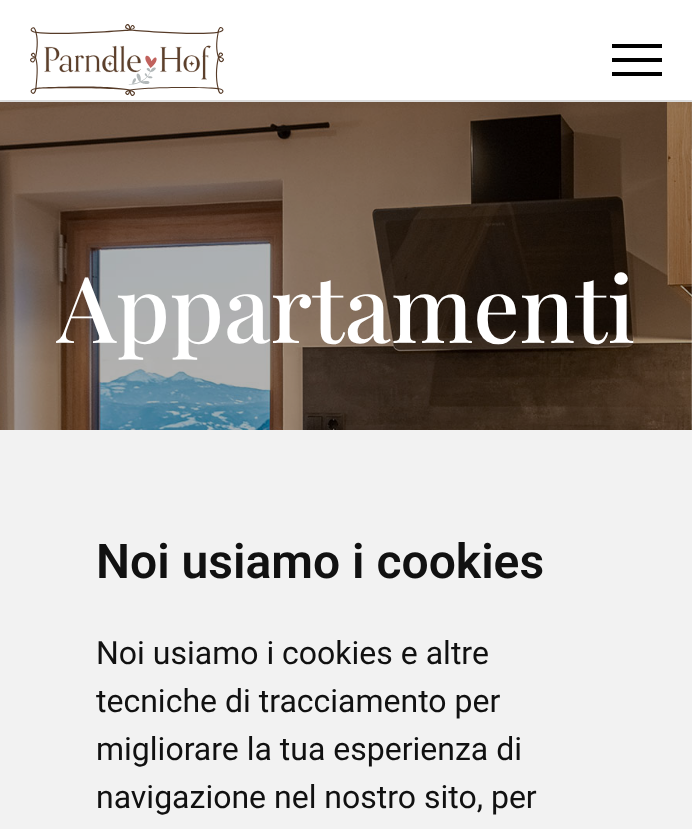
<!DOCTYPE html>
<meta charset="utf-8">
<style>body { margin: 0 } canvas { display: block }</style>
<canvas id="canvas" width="692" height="829"></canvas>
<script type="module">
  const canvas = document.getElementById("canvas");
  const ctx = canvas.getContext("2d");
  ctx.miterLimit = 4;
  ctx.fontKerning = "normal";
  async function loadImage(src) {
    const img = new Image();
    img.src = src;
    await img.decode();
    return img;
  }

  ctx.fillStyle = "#ffffff";
  ctx.fillRect(0, 0, 692, 829);
  ctx.drawImage(await loadImage("img2.png"), 0, 100, 692, 50);
  ctx.drawImage(await loadImage("img3.png"), 0, 102, 692, 328);
  ctx.fillStyle = "rgba(0, 0, 0, 0.1)";
  ctx.filter = "blur(4px)";
  ctx.beginPath();
  ctx.rect(0, 0, 692, 100);
  ctx.fill();
  ctx.filter = "none";
  ctx.fillStyle = "#ffffff";
  ctx.fillRect(0, 0, 692, 100);
  ctx.drawImage(await loadImage("img1.png"), 30, 24, 194, 72);
  ctx.fillStyle = "#000000";
  ctx.fillRect(612, 44, 50, 4);
  ctx.fillRect(612, 58, 50, 4);
  ctx.fillRect(612, 72, 50, 4);
  ctx.font = "500 92px Playfair Display";
  ctx.fillStyle = "#ffffff";
  ctx.fillText("Appartamenti", 57, 343);
  ctx.fillStyle = "#f2f2f2";
  ctx.fillRect(0, 430, 692, 399);
  ctx.font = "600 48px Roboto";
  ctx.fillStyle = "#111111";
  ctx.fillText("Noi usiamo i cookies", 96, 578);
  ctx.font = "32px Roboto";
  ctx.fillText("Noi usiamo i cookies e altre", 96, 664);
  ctx.fillText("tecniche di tracciamento per", 96, 712);
  ctx.fillText("migliorare la tua esperienza di", 96, 760);
  ctx.fillText("navigazione nel nostro sito, per", 96, 808);
</script>
